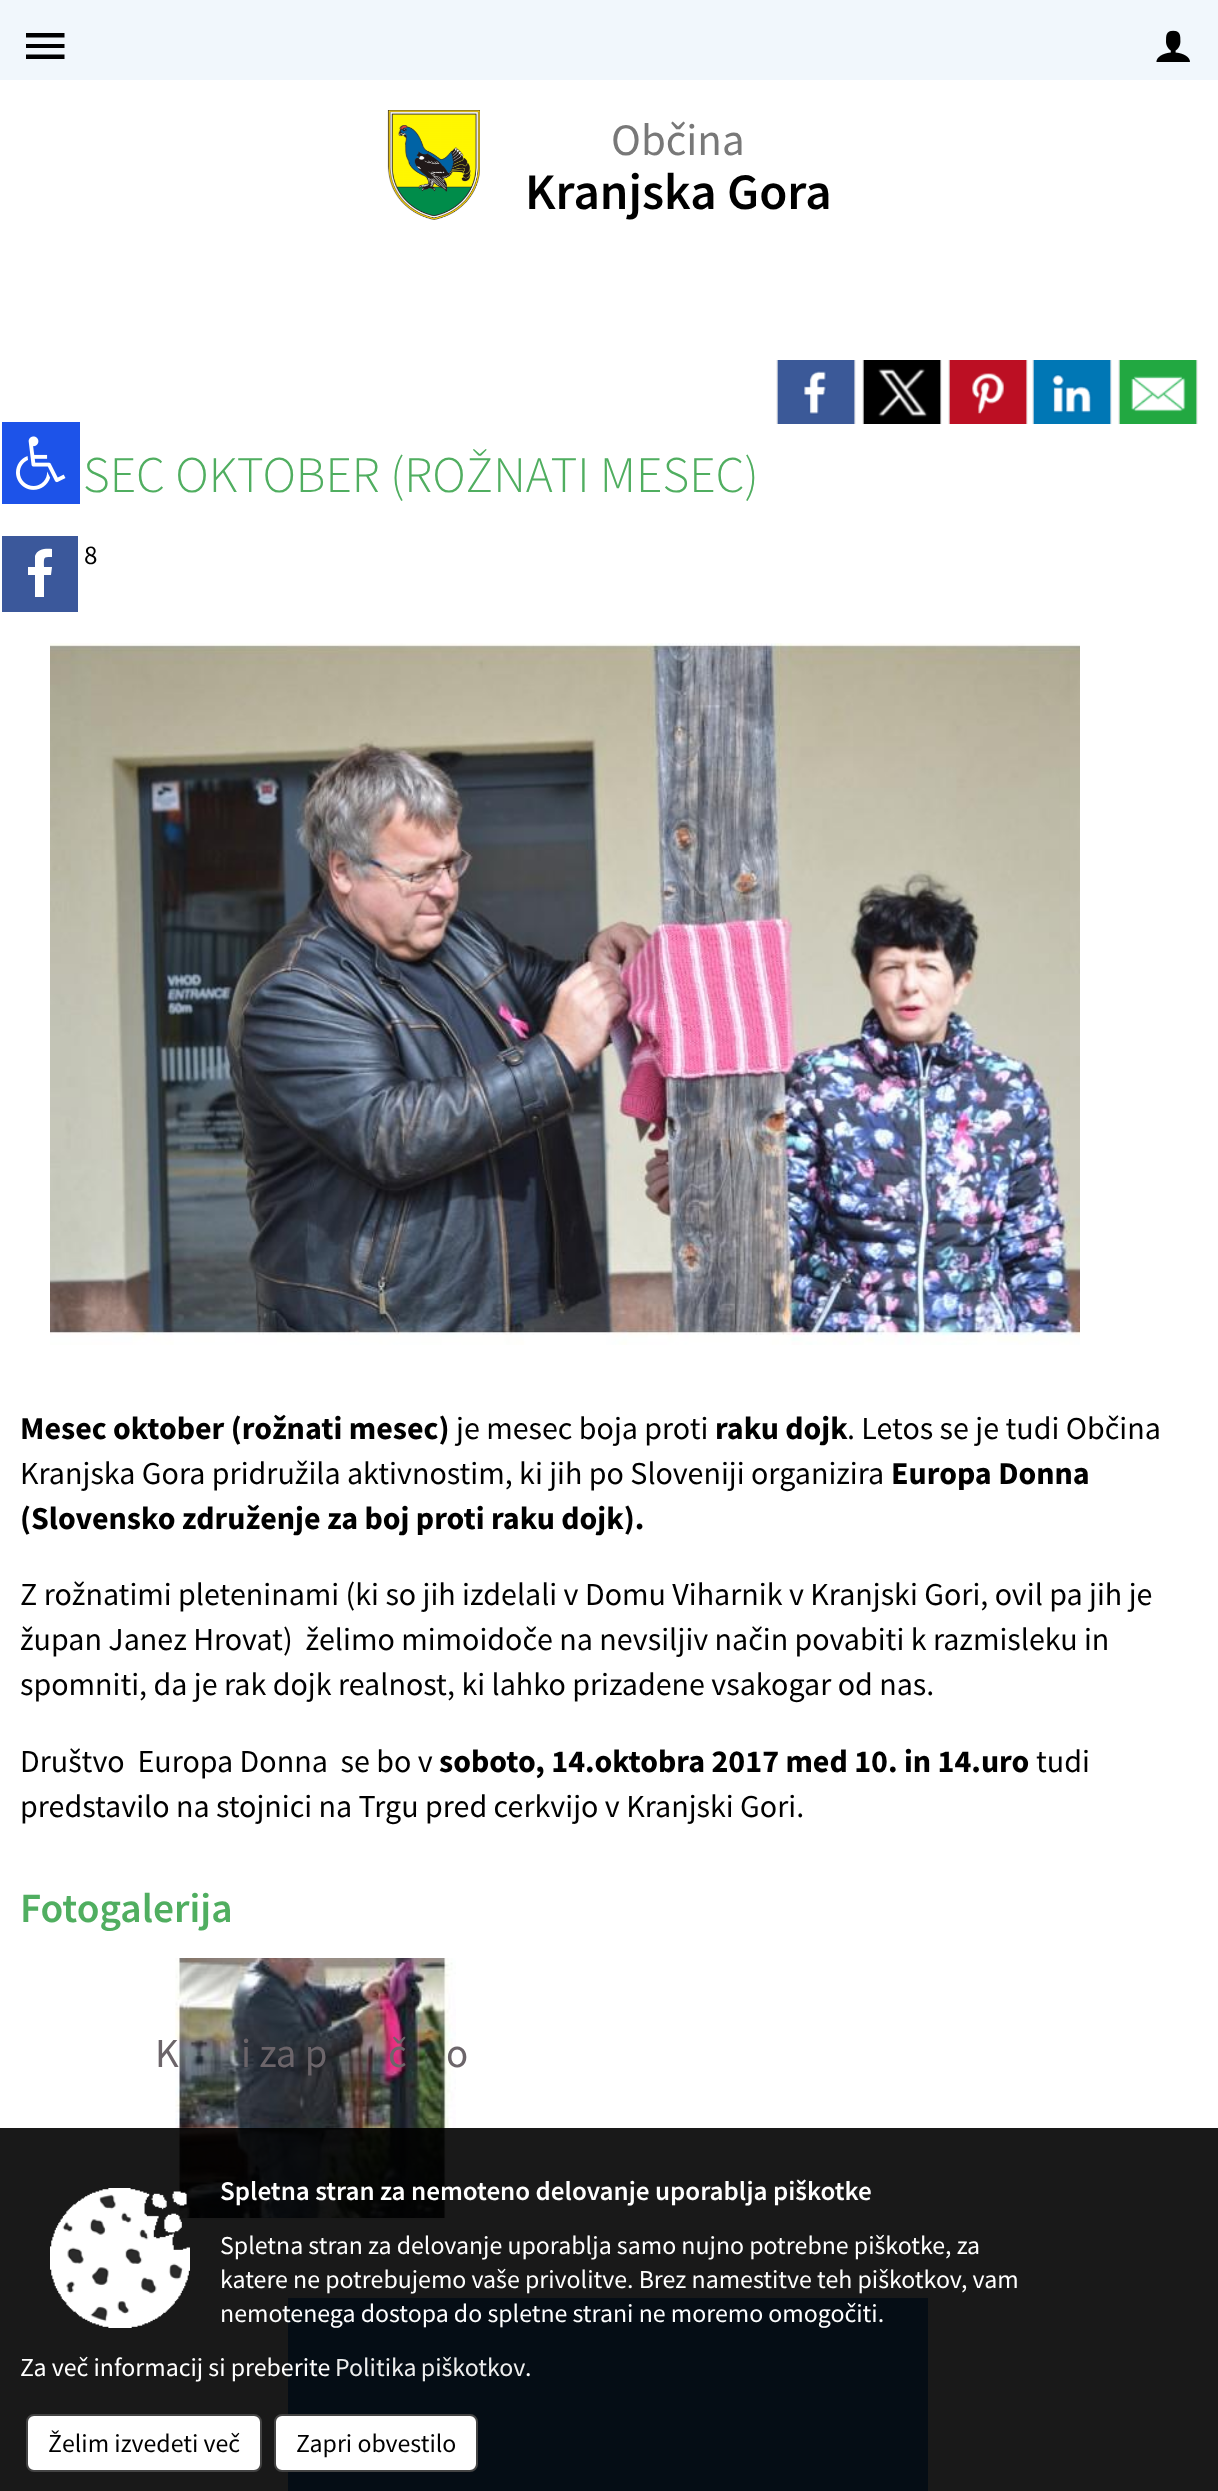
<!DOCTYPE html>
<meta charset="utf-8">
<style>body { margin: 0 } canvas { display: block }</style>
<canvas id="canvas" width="1218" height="2491"></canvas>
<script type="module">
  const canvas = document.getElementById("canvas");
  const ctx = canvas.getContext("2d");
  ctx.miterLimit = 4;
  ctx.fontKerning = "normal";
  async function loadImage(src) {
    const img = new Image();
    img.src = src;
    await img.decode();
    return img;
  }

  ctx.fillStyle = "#ffffff";
  ctx.fillRect(0, 0, 1218, 2491);
  ctx.fillStyle = "#f1f7fc";
  ctx.fillRect(0, 0, 1218, 80);
  ctx.fillStyle = "#000000";
  ctx.beginPath();
  ctx.moveTo(26, 33);
  ctx.lineTo(64.5, 33);
  ctx.lineTo(64.5, 37.5);
  ctx.lineTo(26, 37.5);
  ctx.closePath();
  ctx.moveTo(26, 48);
  ctx.lineTo(26, 44);
  ctx.lineTo(64.5, 44);
  ctx.lineTo(64.5, 48);
  ctx.closePath();
  ctx.moveTo(26, 59);
  ctx.lineTo(26, 54.5);
  ctx.lineTo(64.5, 54.5);
  ctx.lineTo(64.5, 59);
  ctx.closePath();
  ctx.fill();
  ctx.drawImage(await loadImage("img1.png"), 1156, 30, 34, 32);
  ctx.drawImage(await loadImage("img2.png"), 387, 110, 93, 110);
  ctx.font = "45px Source Sans Pro";
  ctx.fillStyle = "#787878";
  ctx.fillText("Občina", 611, 155);
  ctx.font = "600 51.25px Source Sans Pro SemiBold";
  ctx.fillStyle = "#000000";
  ctx.fillText("Kranjska Gora", 525, 209);
  ctx.fillStyle = "#1d53e9";
  ctx.fillRect(2, 422, 78, 82);
  ctx.drawImage(await loadImage("img3.png"), 16, 436, 50, 54);
  ctx.fillStyle = "#efefef";
  ctx.fillRect(776, 360, 80, 64);
  ctx.drawImage(await loadImage("img4.png"), 777, 360, 78, 64);
  ctx.fillRect(862, 360, 80, 64);
  ctx.drawImage(await loadImage("img5.png"), 863, 360, 78, 64);
  ctx.fillRect(948, 360, 80, 64);
  ctx.drawImage(await loadImage("img6.png"), 949, 360, 78, 64);
  ctx.fillRect(1032, 360, 80, 64);
  ctx.drawImage(await loadImage("img7.png"), 1033, 360, 78, 64);
  ctx.fillRect(1118, 360, 80, 64);
  ctx.drawImage(await loadImage("img8.png"), 1119, 360, 78, 64);
  ctx.font = "300 51.25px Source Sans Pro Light";
  ctx.fillStyle = "#50ae60";
  ctx.fillText("SEC OKTOBER (ROŽNATI MESEC)", 83, 492);
  ctx.font = "27px Source Sans Pro";
  ctx.fillStyle = "#000000";
  ctx.fillText("8", 84, 564);
  ctx.drawImage(await loadImage("img9.png"), 50, 643, 1030, 702);
  ctx.font = "bold 32px Source Sans Pro";
  ctx.fillText("Mesec oktober (rožnati mesec)", 20, 1439);
  ctx.font = "32px Source Sans Pro";
  ctx.fillText("je mesec boja proti", 456, 1439);
  ctx.font = "bold 32px Source Sans Pro";
  ctx.fillText("raku dojk", 715, 1439);
  ctx.font = "32px Source Sans Pro";
  ctx.fillText(". Letos se je tudi Občina", 847, 1439);
  ctx.fillText("Kranjska Gora pridružila aktivnostim, ki jih po Sloveniji organizira", 20, 1484);
  ctx.font = "bold 32px Source Sans Pro";
  ctx.fillText("Europa Donna", 891, 1484);
  ctx.fillText("(Slovensko združenje za boj proti raku dojk).", 20, 1529);
  ctx.font = "32px Source Sans Pro";
  ctx.fillText("Z rožnatimi pleteninami (ki so jih izdelali v Domu Viharnik v Kranjski Gori, ovil pa jih je", 20, 1605);
  ctx.fillText("župan Janez Hrovat)  želimo mimoidoče na nevsiljiv način povabiti k razmisleku in", 20, 1650);
  ctx.fillText("spomniti, da je rak dojk realnost, ki lahko prizadene vsakogar od nas.", 20, 1695);
  ctx.fillText("Društvo  Europa Donna  se bo v", 20, 1772);
  ctx.font = "bold 32px Source Sans Pro";
  ctx.fillText("soboto, 14.oktobra 2017 med 10. in 14.uro", 439, 1772);
  ctx.font = "32px Source Sans Pro";
  ctx.fillText("tudi", 1036, 1772);
  ctx.fillText("predstavilo na stojnici na Trgu pred cerkvijo v Kranjski Gori.", 20, 1817);
  ctx.font = "600 41.5px Source Sans Pro SemiBold";
  ctx.fillStyle = "#50ae60";
  ctx.fillText("Fotogalerija", 20, 1922);
  ctx.drawImage(await loadImage("img10.png"), 175, 1958, 281, 260);
  ctx.font = "41px Source Sans Pro";
  ctx.fillStyle = "#6c656a";
  ctx.fillText("K", 155, 2067);
  ctx.fillText("i za p", 241, 2067);
  ctx.fillText("č", 388, 2067);
  ctx.fillText("o", 446, 2067);
  ctx.fillStyle = "#3388d2";
  ctx.fillRect(288, 2298, 640, 193);
  ctx.fillStyle = "#3b589b";
  ctx.fillRect(2, 536, 76, 76);
  ctx.fillStyle = "#ffffff";
  ctx.beginPath();
  ctx.moveTo(44, 597);
  ctx.lineTo(44, 575);
  ctx.lineTo(51, 575);
  ctx.lineTo(52, 567);
  ctx.lineTo(44, 567);
  ctx.bezierCurveTo(44, 557, 43, 557, 52, 557);
  ctx.lineTo(52, 549);
  ctx.bezierCurveTo(46, 548, 37, 549, 35, 556);
  ctx.lineTo(35, 567);
  ctx.lineTo(28, 567);
  ctx.lineTo(28, 575);
  ctx.lineTo(35, 575);
  ctx.lineTo(35, 597);
  ctx.closePath();
  ctx.fill();
  ctx.fillStyle = "rgba(0, 0, 0, 0.9)";
  ctx.fillRect(0, 2128, 1218, 363);
  ctx.font = "600 27.1px Source Sans Pro SemiBold";
  ctx.fillStyle = "#ffffff";
  ctx.fillText("Spletna stran za nemoteno delovanje uporablja piškotke", 220, 2200);
  ctx.font = "25.85px Source Sans Pro";
  ctx.fillText("Spletna stran za delovanje uporablja samo nujno potrebne piškotke, za", 220, 2254);
  ctx.fillText("katere ne potrebujemo vaše privolitve. Brez namestitve teh piškotkov, vam", 220, 2288);
  ctx.fillText("nemotenega dostopa do spletne strani ne moremo omogočiti.", 220, 2322);
  ctx.fillText("Za več informacij si preberite", 20, 2376);
  ctx.wordSpacing = "-1px";
  ctx.fillStyle = "#eeeeee";
  ctx.fillText("Politika piškotkov", 335, 2376);
  ctx.wordSpacing = "0px";
  ctx.fillStyle = "#ffffff";
  ctx.fillText(".", 525, 2376);
  ctx.drawImage(await loadImage("img11.png"), 50, 2188, 140, 140);
  ctx.beginPath();
  ctx.roundRect(27, 2415, 234, 56, 7);
  ctx.fill();
  ctx.strokeStyle = "#444444";
  ctx.lineWidth = 2;
  ctx.stroke();
  ctx.fillStyle = "#000000";
  ctx.fillText("Želim izvedeti več", 48, 2452);
  ctx.fillStyle = "#ffffff";
  ctx.beginPath();
  ctx.roundRect(275, 2415, 202, 56, 7);
  ctx.fill();
  ctx.stroke();
  ctx.fillStyle = "#000000";
  ctx.fillText("Zapri obvestilo", 296, 2452);
</script>
